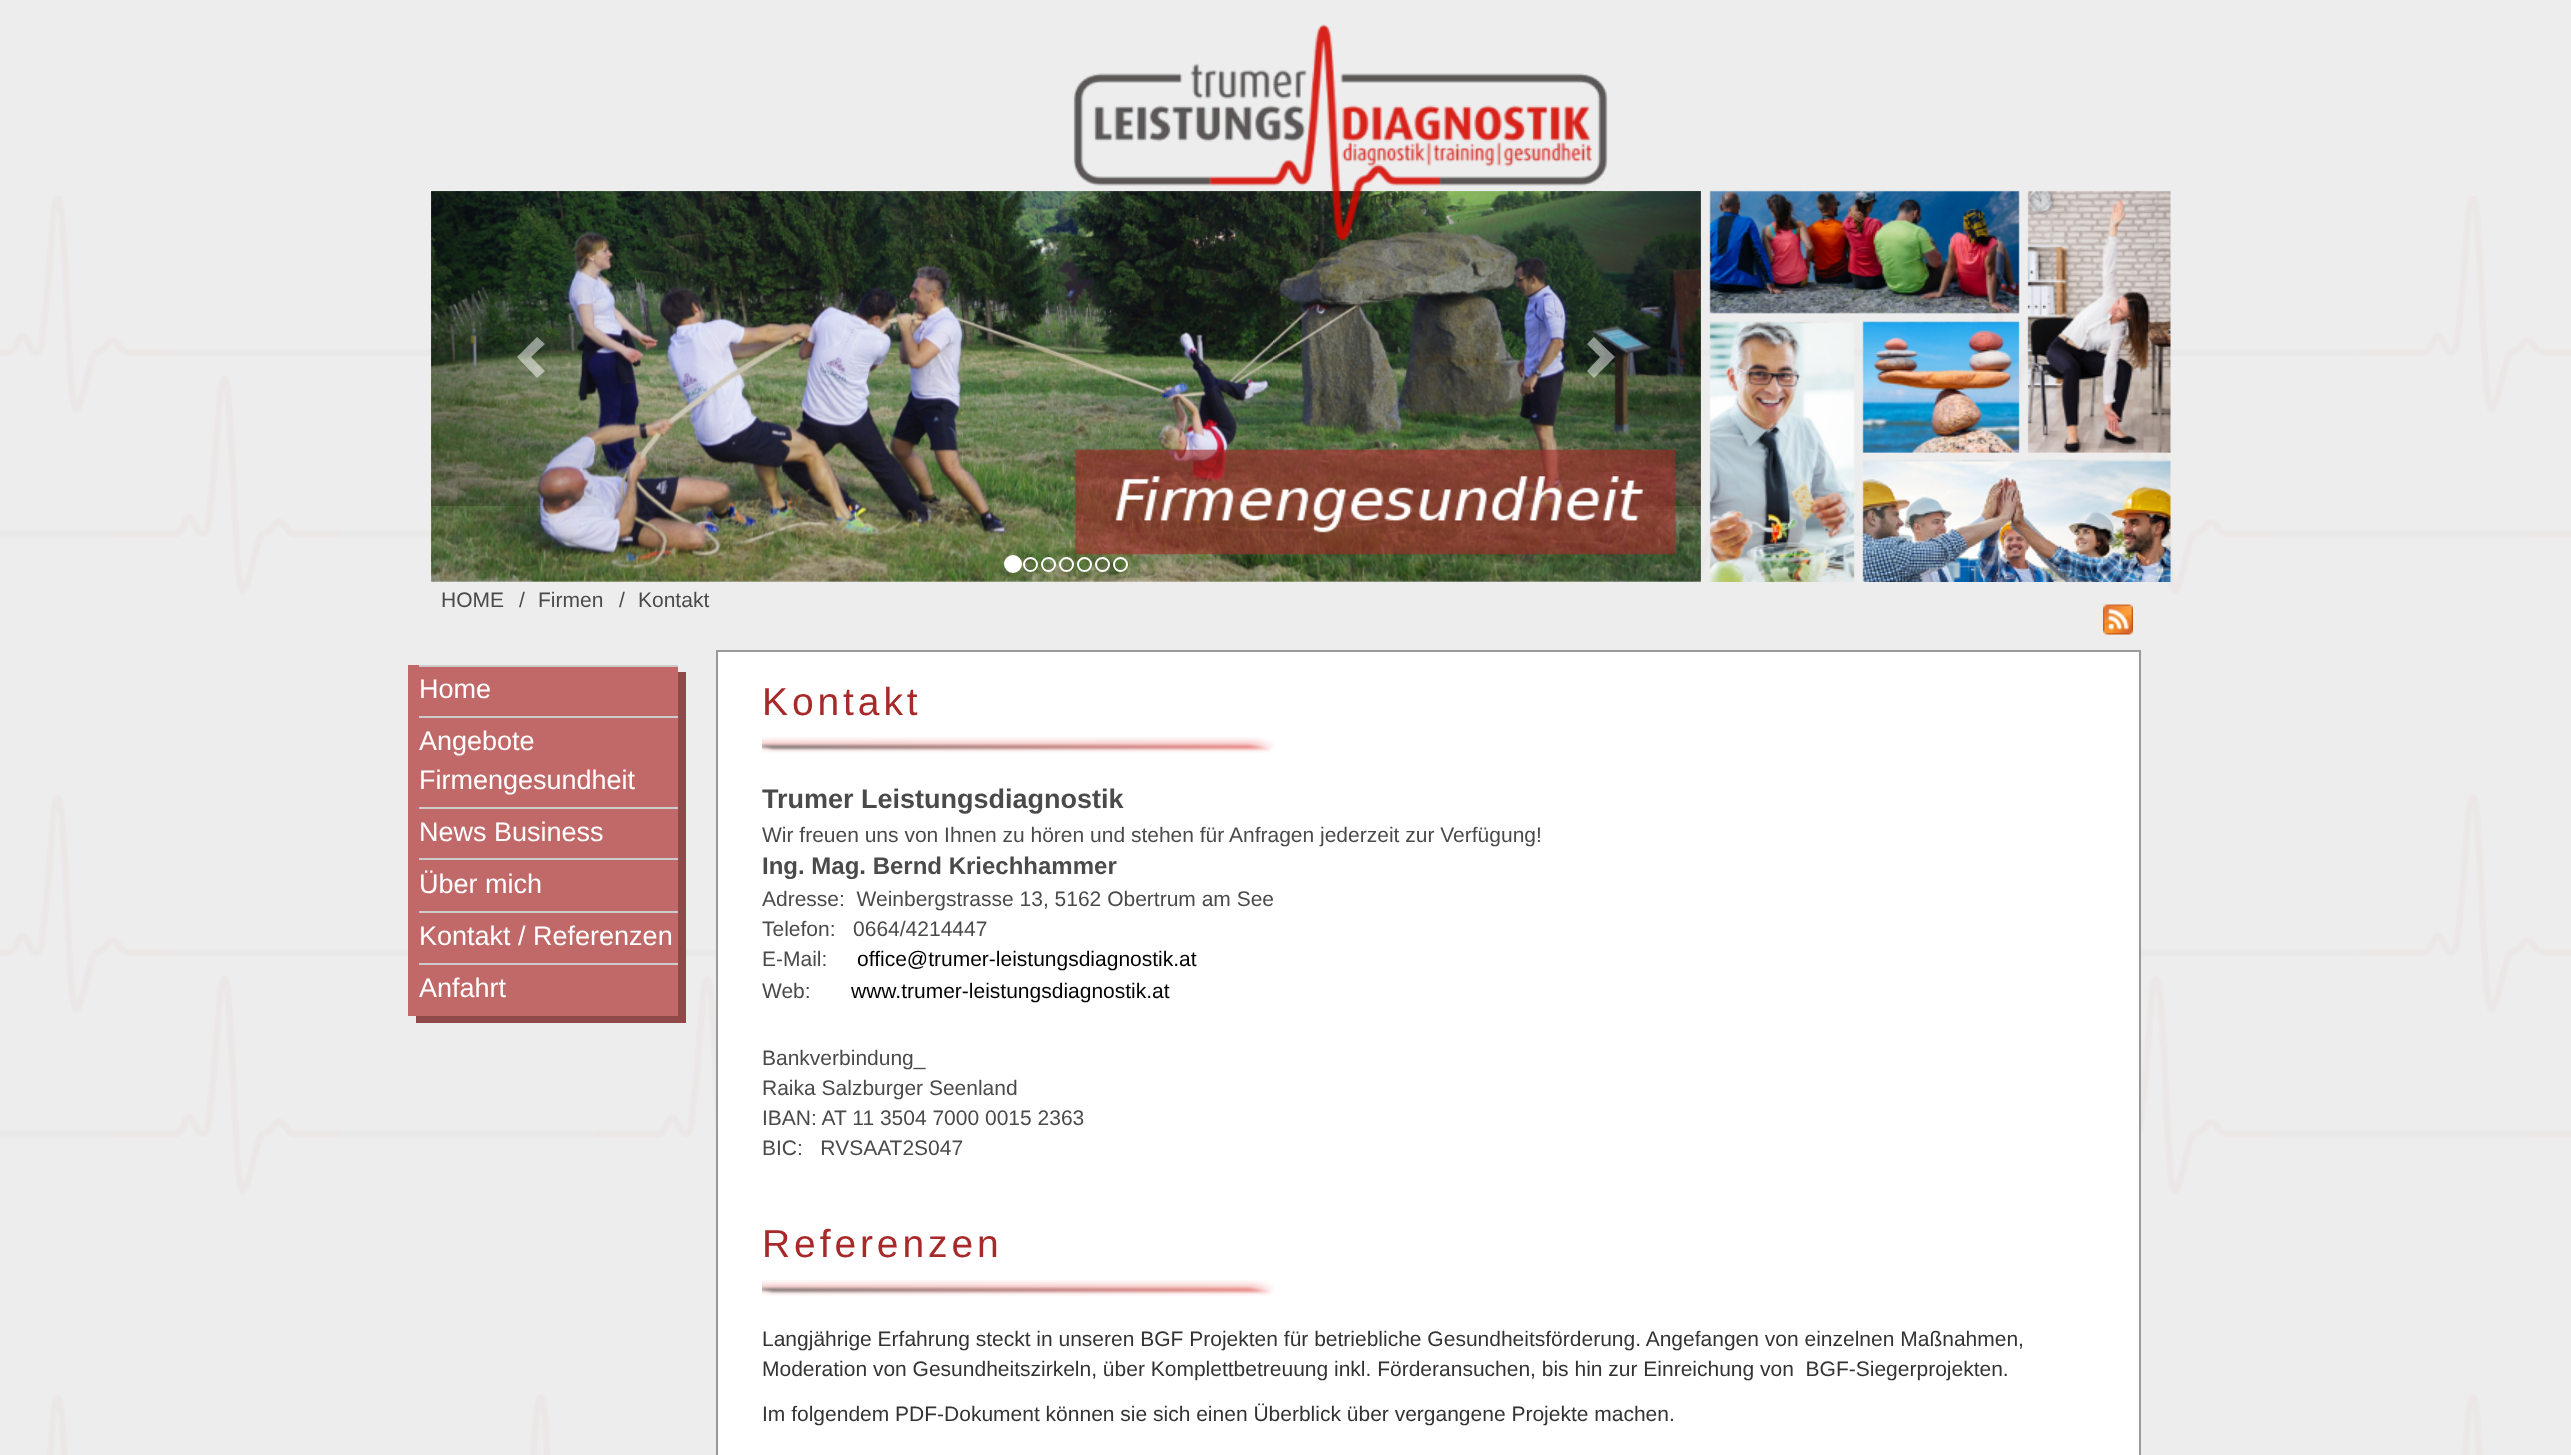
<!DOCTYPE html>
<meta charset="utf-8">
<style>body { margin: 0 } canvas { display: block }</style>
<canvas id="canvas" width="2571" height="1455"></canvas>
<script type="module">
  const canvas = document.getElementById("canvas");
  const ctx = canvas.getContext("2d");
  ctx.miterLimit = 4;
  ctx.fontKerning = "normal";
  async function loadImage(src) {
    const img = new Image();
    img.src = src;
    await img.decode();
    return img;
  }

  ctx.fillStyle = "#ededed";
  ctx.fillRect(0, 0, 2571, 1455);
  ctx.drawImage(await loadImage("img1.png"), 0, 196, 2571, 1259);
  ctx.drawImage(await loadImage("img3.png"), 431, 191, 1270, 391);
  ctx.fillStyle = "rgba(255, 255, 255, 0.5)";
  ctx.beginPath();
  ctx.moveTo(1615, 357);
  ctx.lineTo(1594, 378);
  ctx.lineTo(1587, 371);
  ctx.lineTo(1600, 357);
  ctx.lineTo(1587, 344);
  ctx.lineTo(1594, 337);
  ctx.closePath();
  ctx.fill();
  ctx.drawImage(await loadImage("img2.png"), 1073, 24, 1098, 558);
  ctx.beginPath();
  ctx.moveTo(545, 344);
  ctx.lineTo(531, 357);
  ctx.lineTo(545, 371);
  ctx.lineTo(537, 378);
  ctx.lineTo(517, 357);
  ctx.lineTo(537, 337);
  ctx.closePath();
  ctx.fill();
  ctx.fillStyle = "#ffffff";
  ctx.beginPath();
  ctx.arc(1013, 564, 8, 0, Math.PI * 2);
  ctx.fill();
  ctx.strokeStyle = "#ffffff";
  ctx.lineWidth = 2;
  ctx.stroke();
  ctx.beginPath();
  ctx.arc(1030.5, 564.5, 6.5, 0, Math.PI * 2);
  ctx.stroke();
  ctx.beginPath();
  ctx.arc(1048.5, 564.5, 6.5, 0, Math.PI * 2);
  ctx.stroke();
  ctx.beginPath();
  ctx.arc(1066.5, 564.5, 6.5, 0, Math.PI * 2);
  ctx.stroke();
  ctx.beginPath();
  ctx.arc(1084.5, 564.5, 6.5, 0, Math.PI * 2);
  ctx.stroke();
  ctx.beginPath();
  ctx.arc(1102.5, 564.5, 6.5, 0, Math.PI * 2);
  ctx.stroke();
  ctx.beginPath();
  ctx.arc(1120.5, 564.5, 6.5, 0, Math.PI * 2);
  ctx.stroke();
  ctx.fillStyle = "#ededed";
  ctx.fillRect(719, 582, 981, 12);
  ctx.font = "21px Liberation Sans";
  ctx.fillStyle = "#4a4a4a";
  ctx.fillText("HOME", 441, 607);
  ctx.fillText("/", 519, 607);
  ctx.fillText("Firmen", 538, 607);
  ctx.fillText("/", 619, 607);
  ctx.fillText("Kontakt", 638, 607);
  ctx.drawImage(await loadImage("img4.png"), 2103, 604, 30, 31);
  ctx.fillStyle = "#8f4949";
  ctx.beginPath();
  ctx.moveTo(416, 1016);
  ctx.lineTo(416, 1023);
  ctx.lineTo(686, 1023);
  ctx.lineTo(686, 672);
  ctx.lineTo(678, 672);
  ctx.lineTo(678, 1016);
  ctx.closePath();
  ctx.fill();
  ctx.fillStyle = "#c16868";
  ctx.fillRect(408, 665, 270, 351);
  ctx.fillStyle = "#cccccc";
  ctx.fillRect(419, 665, 259, 2);
  ctx.font = "27px Liberation Sans";
  ctx.fillStyle = "#ffffff";
  ctx.fillText("Home", 419, 698);
  ctx.fillStyle = "#cccccc";
  ctx.fillRect(419, 716, 259, 2);
  ctx.fillStyle = "#ffffff";
  ctx.fillText("Angebote", 419, 750);
  ctx.fillText("Firmengesundheit", 419, 789);
  ctx.fillStyle = "#cccccc";
  ctx.fillRect(419, 807, 259, 2);
  ctx.fillStyle = "#ffffff";
  ctx.fillText("News Business", 419, 841);
  ctx.fillStyle = "#cccccc";
  ctx.fillRect(419, 858, 259, 2);
  ctx.fillStyle = "#ffffff";
  ctx.fillText("Über mich", 419, 893);
  ctx.fillStyle = "#cccccc";
  ctx.fillRect(419, 911, 259, 2);
  ctx.fillStyle = "#ffffff";
  ctx.fillText("Kontakt / Referenzen", 419, 945);
  ctx.fillStyle = "#cccccc";
  ctx.fillRect(419, 963, 259, 2);
  ctx.fillStyle = "#ffffff";
  ctx.fillText("Anfahrt", 419, 997);
  ctx.beginPath();
  ctx.rect(717, 651, 1423, 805);
  ctx.fill();
  ctx.strokeStyle = "#999999";
  ctx.stroke();
  ctx.letterSpacing = "3.9px";
  ctx.font = "39px Liberation Sans";
  ctx.fillStyle = "#a72929";
  ctx.fillText("Kontakt", 762, 715);
  ctx.drawImage(await loadImage("img5.png"), 762, 737, 512, 16);
  ctx.letterSpacing = "0px";
  ctx.font = "bold 27px Liberation Sans";
  ctx.fillStyle = "#4a4a4a";
  ctx.fillText("Trumer Leistungsdiagnostik", 762, 808);
  ctx.font = "21px Liberation Sans";
  ctx.fillText("Wir freuen uns von Ihnen zu hören und stehen für Anfragen jederzeit zur Verfügung!", 762, 842);
  ctx.font = "bold 24px Liberation Sans";
  ctx.fillText("Ing. Mag. Bernd Kriechhammer", 762, 874);
  ctx.font = "21px Liberation Sans";
  ctx.fillText("Adresse:  Weinbergstrasse 13, 5162 Obertrum am See", 762, 906);
  ctx.fillText("Telefon:   0664/4214447", 762, 936);
  ctx.fillText("E-Mail:", 762, 966);
  ctx.fillStyle = "#000000";
  ctx.fillText("office@trumer-leistungsdiagnostik.at", 857, 966);
  ctx.fillStyle = "#4a4a4a";
  ctx.fillText("Web:", 762, 998);
  ctx.fillStyle = "#000000";
  ctx.fillText("www.trumer-leistungsdiagnostik.at", 851, 998);
  ctx.fillStyle = "#4a4a4a";
  ctx.fillText("Bankverbindung_", 762, 1065);
  ctx.fillText("Raika Salzburger Seenland", 762, 1095);
  ctx.fillText("IBAN: AT 11 3504 7000 0015 2363", 762, 1125);
  ctx.fillText("BIC:   RVSAAT2S047", 762, 1155);
  ctx.letterSpacing = "3.9px";
  ctx.font = "39px Liberation Sans";
  ctx.fillStyle = "#a72929";
  ctx.fillText("Referenzen", 762, 1257);
  ctx.drawImage(await loadImage("img5.png"), 762, 1280, 512, 16);
  ctx.letterSpacing = "0px";
  ctx.font = "21px Liberation Sans";
  ctx.fillStyle = "#333333";
  ctx.fillText("Langjährige Erfahrung steckt in unseren BGF Projekten für betriebliche Gesundheitsförderung. Angefangen von einzelnen Maßnahmen,", 762, 1346);
  ctx.fillText("Moderation von Gesundheitszirkeln, über Komplettbetreuung inkl. Förderansuchen, bis hin zur Einreichung von  BGF-Siegerprojekten.", 762, 1376);
  ctx.fillText("Im folgendem PDF-Dokument können sie sich einen Überblick über vergangene Projekte machen.", 762, 1421);
</script>
